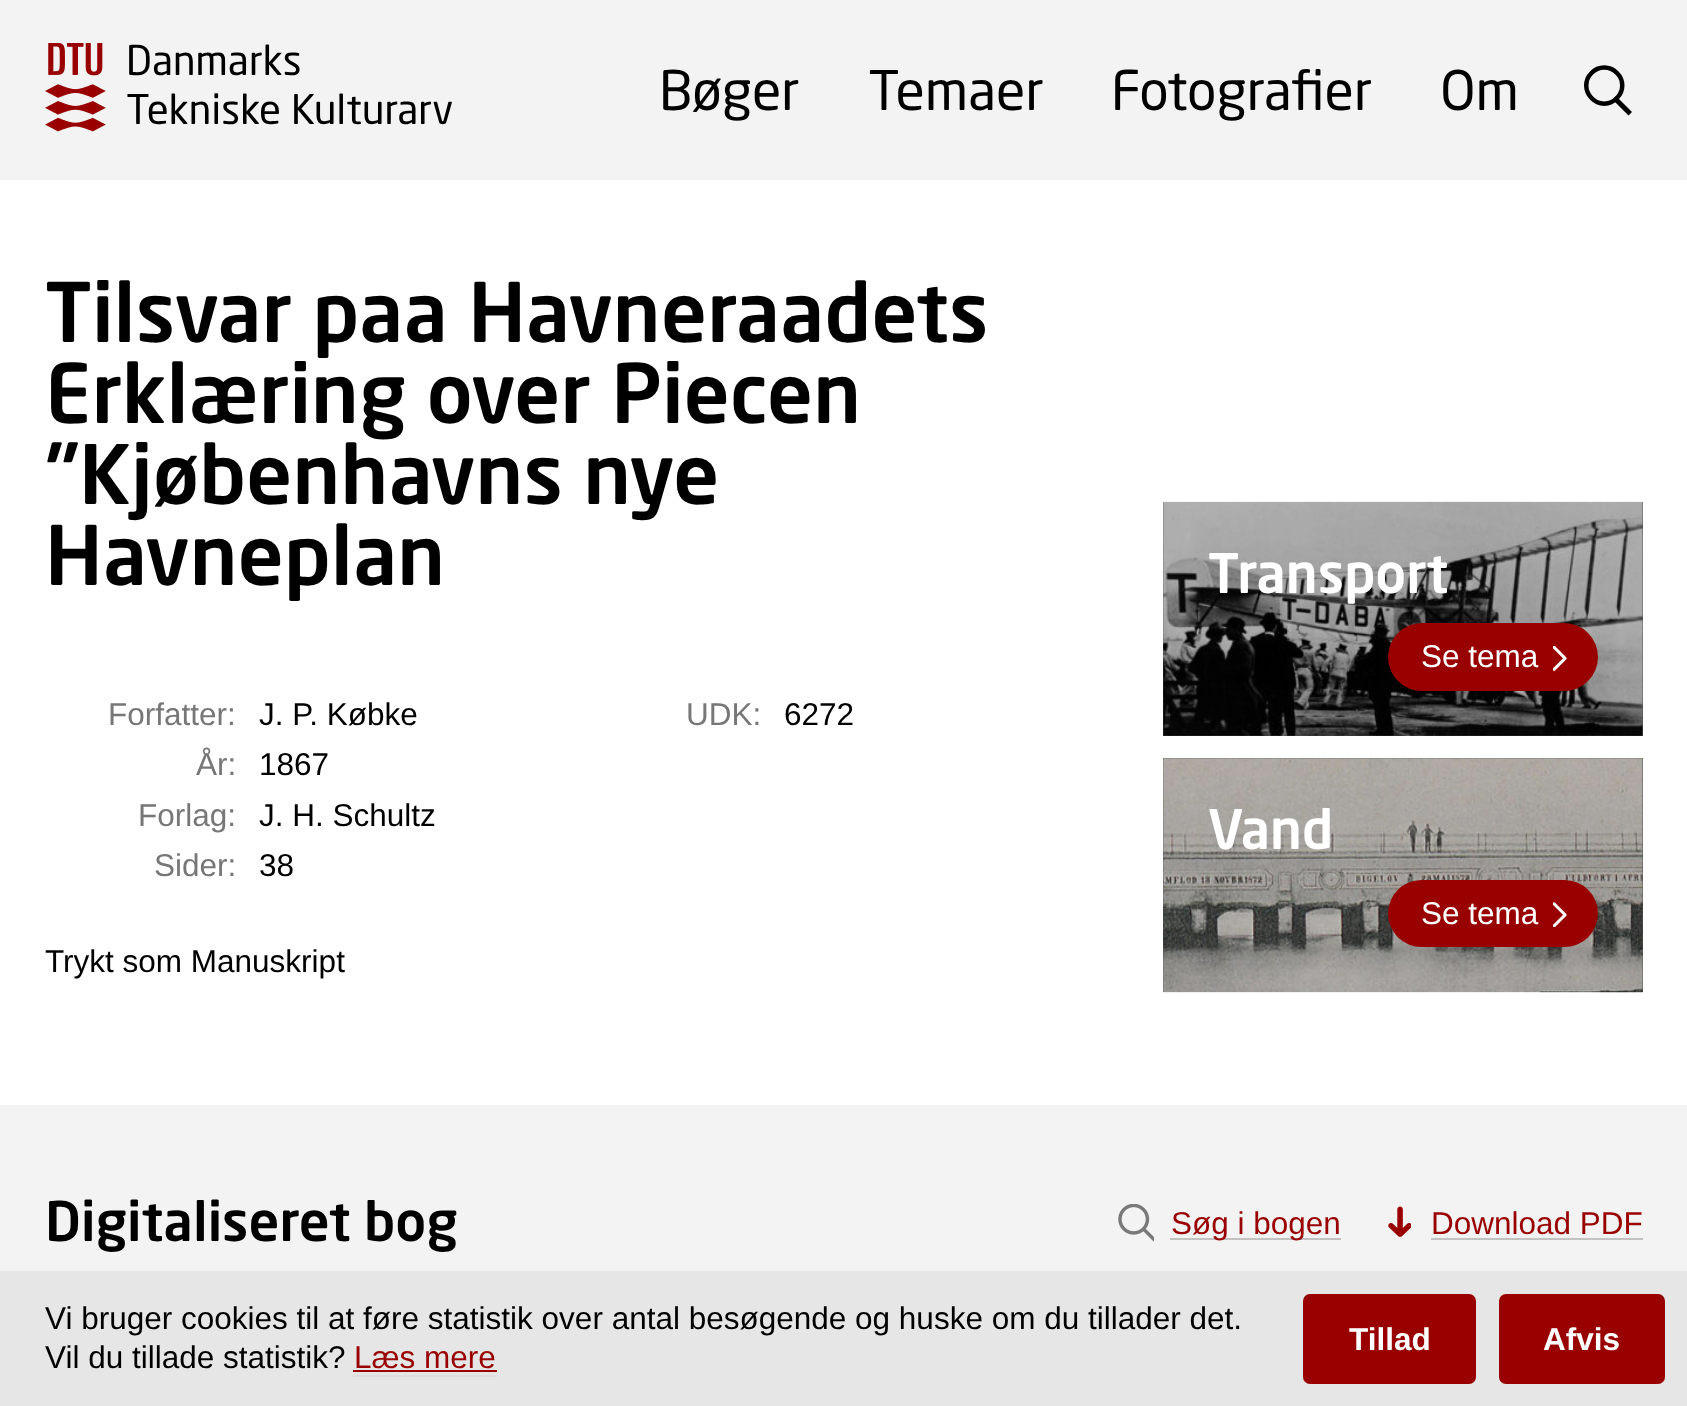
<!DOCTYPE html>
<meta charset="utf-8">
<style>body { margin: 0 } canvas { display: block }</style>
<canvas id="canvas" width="1687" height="1406"></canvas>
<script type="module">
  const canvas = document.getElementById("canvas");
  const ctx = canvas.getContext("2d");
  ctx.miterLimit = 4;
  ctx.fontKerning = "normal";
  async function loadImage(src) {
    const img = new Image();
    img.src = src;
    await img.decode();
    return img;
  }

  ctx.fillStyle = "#f3f3f3";
  ctx.fillRect(0, 0, 1687, 1406);
  ctx.drawImage(await loadImage("img1.png"), 45, 43, 61, 89);
  ctx.font = "40.5px 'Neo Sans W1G'";
  ctx.fillStyle = "#000000";
  ctx.fillText("Danmarks", 126, 75);
  ctx.fillText("Tekniske Kulturarv", 126, 124);
  ctx.font = "54px 'Neo Sans W1G'";
  ctx.fillText("Bøger", 659, 110);
  ctx.fillText("Temaer", 868, 110);
  ctx.fillText("Fotografier", 1111, 110);
  ctx.fillText("Om", 1440, 110);
  ctx.beginPath();
  ctx.moveTo(1591.5, 73);
  ctx.bezierCurveTo(1598.5, 65.5, 1610, 65.5, 1617, 73);
  ctx.bezierCurveTo(1624, 80, 1624, 91, 1617, 98);
  ctx.bezierCurveTo(1610, 105.5, 1598.5, 105.5, 1591.5, 98);
  ctx.bezierCurveTo(1584.5, 91, 1584.5, 80, 1591.5, 73);
  ctx.closePath();
  ctx.strokeStyle = "#000000";
  ctx.lineWidth = 4.5;
  ctx.stroke();
  ctx.beginPath();
  ctx.moveTo(1612.5, 99.5);
  ctx.lineTo(1616, 96);
  ctx.lineTo(1632, 112);
  ctx.lineTo(1628.5, 115.5);
  ctx.closePath();
  ctx.fill();
  ctx.fillStyle = "#ffffff";
  ctx.fillRect(0, 180, 1687, 925);
  ctx.font = "500 81px 'Neo Sans W1G'";
  ctx.fillStyle = "#000000";
  ctx.fillText("Tilsvar paa Havneraadets", 45, 342);
  ctx.fillText("Erklæring over Piecen", 45, 423);
  ctx.fillText("\"Kjøbenhavns nye", 45, 504);
  ctx.fillText("Havneplan", 45, 585);
  ctx.font = "31.5px Liberation Sans";
  ctx.fillStyle = "#777777";
  ctx.fillText("Forfatter:", 108, 725);
  ctx.fillStyle = "#000000";
  ctx.fillText("J. P. Købke", 259, 725);
  ctx.fillStyle = "#777777";
  ctx.fillText("År:", 196, 775);
  ctx.fillStyle = "#000000";
  ctx.fillText("1867", 259, 775);
  ctx.fillStyle = "#777777";
  ctx.fillText("Forlag:", 138, 826);
  ctx.fillStyle = "#000000";
  ctx.fillText("J. H. Schultz", 259, 826);
  ctx.fillStyle = "#777777";
  ctx.fillText("Sider:", 154, 876);
  ctx.fillStyle = "#000000";
  ctx.fillText("38", 259, 876);
  ctx.fillStyle = "#777777";
  ctx.fillText("UDK:", 686, 725);
  ctx.fillStyle = "#000000";
  ctx.fillText("6272", 784, 725);
  ctx.fillText("Trykt som Manuskript", 45, 972);
  ctx.fillStyle = "#525252";
  ctx.fillRect(1163, 502, 480, 234);
  ctx.drawImage(await loadImage("img2.png"), 1163, 501, 480, 235);
  ctx.font = "500 54px 'Neo Sans W1G'";
  ctx.fillStyle = "#ffffff";
  ctx.fillText("Transport", 1208, 593);
  ctx.fillStyle = "#990000";
  ctx.beginPath();
  ctx.roundRect(1388, 623, 210, 68, 34);
  ctx.fill();
  ctx.font = "31.5px Liberation Sans";
  ctx.fillStyle = "#ffffff";
  ctx.fillText("Se tema", 1421, 667);
  ctx.drawImage(await loadImage("img3.png"), 1553, 646, 14, 25);
  ctx.fillStyle = "#525252";
  ctx.fillRect(1163, 758, 480, 234);
  ctx.drawImage(await loadImage("img4.png"), 1163, 758, 480, 235);
  ctx.font = "500 54px 'Neo Sans W1G'";
  ctx.fillStyle = "#ffffff";
  ctx.fillText("Vand", 1208, 849);
  ctx.fillStyle = "#990000";
  ctx.beginPath();
  ctx.roundRect(1388, 880, 210, 67, 33.5);
  ctx.fill();
  ctx.font = "31.5px Liberation Sans";
  ctx.fillStyle = "#ffffff";
  ctx.fillText("Se tema", 1421, 924);
  ctx.drawImage(await loadImage("img5.png"), 1553, 902, 14, 25);
  ctx.font = "500 54px 'Neo Sans W1G'";
  ctx.fillStyle = "#000000";
  ctx.fillText("Digitaliseret bog", 45, 1241);
  ctx.drawImage(await loadImage("img6.png"), 1118, 1204, 36, 38);
  ctx.fillStyle = "#c2c2c2";
  ctx.fillRect(1170, 1238, 171, 2);
  ctx.font = "31.5px Liberation Sans";
  ctx.fillStyle = "#990000";
  ctx.fillText("Søg i bogen", 1171, 1234);
  ctx.drawImage(await loadImage("img7.png"), 1388, 1206, 23, 31);
  ctx.fillText("Download PDF", 1431, 1234);
  ctx.fillStyle = "#c2c2c2";
  ctx.fillRect(1431, 1238, 212, 2);
  ctx.fillStyle = "#e6e6e6";
  ctx.fillRect(0, 1271, 1687, 135);
  ctx.fillStyle = "#000000";
  ctx.fillText("Vi bruger cookies til at føre statistik over antal besøgende og huske om du tillader det.", 45, 1329);
  ctx.fillText("Vil du tillade statistik?", 45, 1368);
  ctx.fillStyle = "#990000";
  ctx.fillText("Læs mere", 354, 1368);
  ctx.fillStyle = "#dddddd";
  ctx.fillRect(353, 1375, 144, 2);
  ctx.fillStyle = "#990000";
  ctx.fillRect(353, 1370, 144, 2);
  ctx.beginPath();
  ctx.roundRect(1303, 1294, 173, 90, 7);
  ctx.fill();
  ctx.font = "bold 31.5px Liberation Sans";
  ctx.fillStyle = "#ffffff";
  ctx.fillText("Tillad", 1349, 1350);
  ctx.fillStyle = "#990000";
  ctx.beginPath();
  ctx.roundRect(1499, 1294, 166, 90, 7);
  ctx.fill();
  ctx.fillStyle = "#ffffff";
  ctx.fillText("Afvis", 1543, 1350);
</script>
